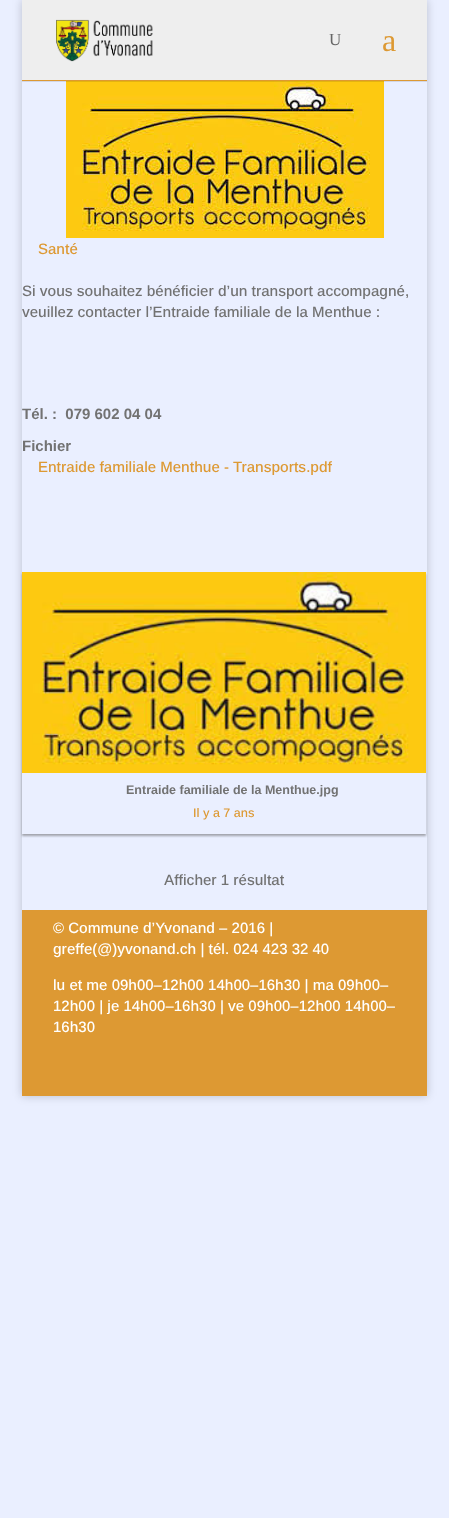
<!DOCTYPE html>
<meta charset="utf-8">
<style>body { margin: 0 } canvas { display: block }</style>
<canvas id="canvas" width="449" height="1518"></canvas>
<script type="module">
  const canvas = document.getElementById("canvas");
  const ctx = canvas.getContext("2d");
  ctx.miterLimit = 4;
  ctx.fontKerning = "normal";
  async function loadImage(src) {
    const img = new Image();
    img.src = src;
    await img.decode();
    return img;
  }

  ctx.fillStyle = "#eaefff";
  ctx.fillRect(0, 0, 449, 1518);
  ctx.save();
  ctx.beginPath();
  ctx.moveTo(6, 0);
  ctx.lineTo(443, 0);
  ctx.lineTo(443, 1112);
  ctx.lineTo(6, 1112);
  ctx.closePath();
  ctx.moveTo(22, 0);
  ctx.lineTo(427, 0);
  ctx.lineTo(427, 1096);
  ctx.lineTo(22, 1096);
  ctx.closePath();
  ctx.clip("evenodd");
  ctx.fillStyle = "rgba(0, 0, 0, 0.2)";
  ctx.filter = "blur(5px)";
  ctx.beginPath();
  ctx.rect(22, 0, 405, 1096);
  ctx.fill();
  ctx.filter = "none";
  ctx.restore();
  ctx.drawImage(await loadImage("img2.png"), 66, 81, 318, 157);
  ctx.fillStyle = "rgba(0, 0, 0, 0.1)";
  ctx.fillRect(22, 81, 405, 1);
  ctx.fillStyle = "#eeeeee";
  ctx.fillRect(22, 0, 405, 80);
  ctx.fillStyle = "#dd9933";
  ctx.fillRect(22, 80, 405, 1);
  ctx.drawImage(await loadImage("img1.png"), 56, 19, 97, 43);
  ctx.font = "17px Liberation Serif";
  ctx.fillStyle = "#666666";
  ctx.fillText("U", 329, 45);
  ctx.font = "32px Liberation Serif";
  ctx.fillStyle = "#dd9933";
  ctx.fillText("a", 382, 51);
  ctx.font = "500 15px Arimo";
  ctx.fillText("Santé", 38, 254);
  ctx.fillStyle = "#727272";
  ctx.fillText("Si vous souhaitez bénéficier d’un transport accompagné,", 22, 296);
  ctx.fillText("veuillez contacter l’Entraide familiale de la Menthue :", 22, 317);
  ctx.font = "bold 15px Arimo";
  ctx.fillText("Tél. :  079 602 04 04", 22, 419);
  ctx.fillText("Fichier", 22, 451);
  ctx.font = "500 15px Arimo";
  ctx.fillStyle = "#dd9933";
  ctx.fillText("Entraide familiale Menthue - Transports.pdf", 38, 472);
  ctx.save();
  ctx.beginPath();
  ctx.moveTo(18, 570);
  ctx.lineTo(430, 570);
  ctx.lineTo(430, 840);
  ctx.lineTo(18, 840);
  ctx.closePath();
  ctx.moveTo(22, 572);
  ctx.lineTo(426, 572);
  ctx.lineTo(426, 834);
  ctx.lineTo(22, 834);
  ctx.closePath();
  ctx.clip("evenodd");
  ctx.fillStyle = "rgba(85, 85, 85, 0.5)";
  ctx.filter = "blur(1px)";
  ctx.beginPath();
  ctx.rect(22, 574, 404, 262);
  ctx.fill();
  ctx.filter = "none";
  ctx.restore();
  ctx.drawImage(await loadImage("img3.png"), 22, 572, 404, 201);
  ctx.font = "bold 12.5px Arimo";
  ctx.fillStyle = "#727272";
  ctx.fillText("Entraide familiale de la Menthue.jpg", 126, 794);
  ctx.font = "500 12.5px Arimo";
  ctx.fillStyle = "#dd9933";
  ctx.fillText("Il y a 7 ans", 193, 817);
  ctx.font = "500 15px Arimo";
  ctx.fillStyle = "#727272";
  ctx.fillText("Afficher 1 résultat", 164, 885);
  ctx.fillStyle = "#dd9933";
  ctx.fillRect(22, 910, 405, 186);
  ctx.fillStyle = "#ffffff";
  ctx.fillText("© Commune d’Yvonand – 2016 |", 53, 933);
  ctx.fillText("greffe(@)yvonand.ch | tél. 024 423 32 40", 53, 954);
  ctx.fillText("lu et me 09h00–12h00 14h00–16h30 | ma 09h00–", 53, 990);
  ctx.fillText("12h00 | je 14h00–16h30 | ve 09h00–12h00 14h00–", 53, 1011);
  ctx.fillText("16h30", 53, 1032);
</script>
